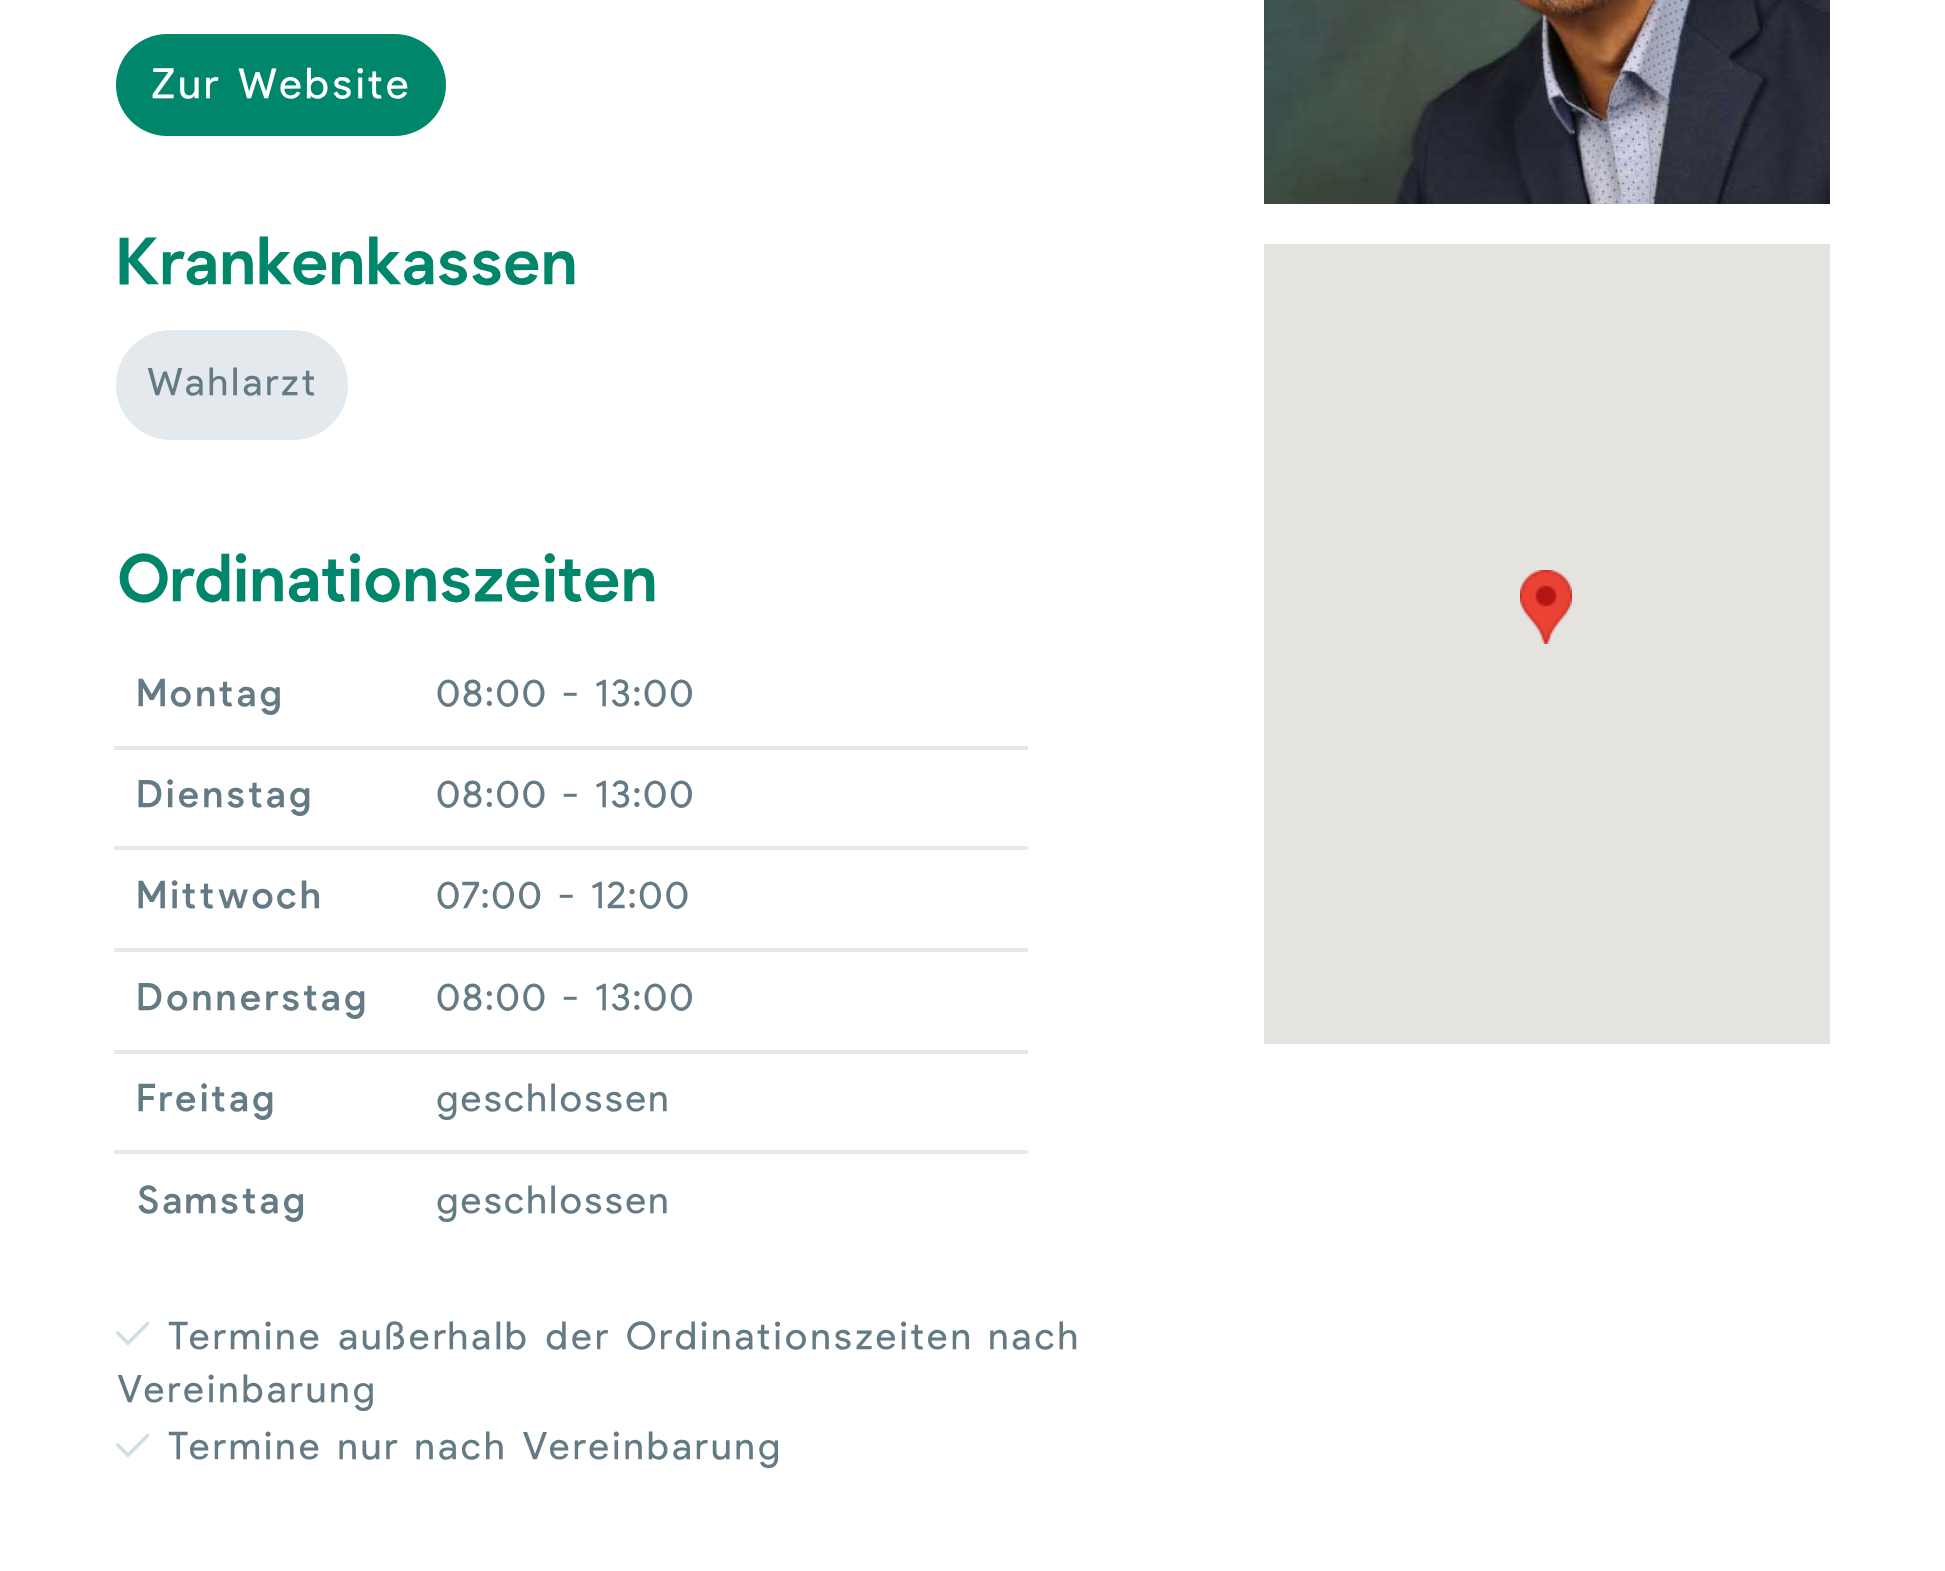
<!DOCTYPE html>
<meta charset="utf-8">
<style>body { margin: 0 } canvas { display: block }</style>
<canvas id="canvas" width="1945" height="1571"></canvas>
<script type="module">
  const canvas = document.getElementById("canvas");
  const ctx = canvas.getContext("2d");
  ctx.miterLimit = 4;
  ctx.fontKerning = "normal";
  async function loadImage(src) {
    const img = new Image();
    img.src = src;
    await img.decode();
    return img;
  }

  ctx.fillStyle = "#ffffff";
  ctx.fillRect(0, 0, 1945, 1571);
  ctx.fillStyle = "#00866a";
  ctx.beginPath();
  ctx.roundRect(116, 34, 330, 102, 51);
  ctx.fill();
  ctx.letterSpacing = "3.1px";
  ctx.font = "300 41.75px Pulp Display";
  ctx.fillStyle = "#ffffff";
  ctx.fillText("Zur Website", 151, 98);
  ctx.letterSpacing = "0px";
  ctx.font = "600 65.25px Pulp Display";
  ctx.fillStyle = "#00866a";
  ctx.fillText("Krankenkassen", 117, 284);
  ctx.fillStyle = "#e3e9ec";
  ctx.beginPath();
  ctx.roundRect(116, 330, 232, 110, 55);
  ctx.fill();
  ctx.letterSpacing = "2.85px";
  ctx.font = "300 38px Pulp Display";
  ctx.fillStyle = "#647a84";
  ctx.fillText("Wahlarzt", 147, 395);
  ctx.letterSpacing = "0px";
  ctx.font = "600 65.25px Pulp Display";
  ctx.fillStyle = "#00866a";
  ctx.fillText("Ordinationszeiten", 117, 601);
  ctx.letterSpacing = "2.85px";
  ctx.font = "500 38px Pulp Display";
  ctx.fillStyle = "#647a84";
  ctx.fillText("Montag", 137, 706);
  ctx.letterSpacing = "1.9px";
  ctx.font = "300 38px Pulp Display";
  ctx.fillText("08:00 - 13:00", 436, 706);
  ctx.fillStyle = "#e3e9ec";
  ctx.fillRect(114, 746, 914, 4);
  ctx.letterSpacing = "2.85px";
  ctx.font = "500 38px Pulp Display";
  ctx.fillStyle = "#647a84";
  ctx.fillText("Dienstag", 137, 807);
  ctx.letterSpacing = "1.9px";
  ctx.font = "300 38px Pulp Display";
  ctx.fillText("08:00 - 13:00", 436, 807);
  ctx.fillStyle = "#e3e9ec";
  ctx.fillRect(114, 846, 914, 4);
  ctx.letterSpacing = "2.85px";
  ctx.font = "500 38px Pulp Display";
  ctx.fillStyle = "#647a84";
  ctx.fillText("Mittwoch", 137, 908);
  ctx.letterSpacing = "1.9px";
  ctx.font = "300 38px Pulp Display";
  ctx.fillText("07:00 - 12:00", 436, 908);
  ctx.fillStyle = "#e3e9ec";
  ctx.fillRect(114, 948, 914, 4);
  ctx.letterSpacing = "2.85px";
  ctx.font = "500 38px Pulp Display";
  ctx.fillStyle = "#647a84";
  ctx.fillText("Donnerstag", 137, 1010);
  ctx.letterSpacing = "1.9px";
  ctx.font = "300 38px Pulp Display";
  ctx.fillText("08:00 - 13:00", 436, 1010);
  ctx.fillStyle = "#e3e9ec";
  ctx.fillRect(114, 1050, 914, 4);
  ctx.letterSpacing = "2.85px";
  ctx.font = "500 38px Pulp Display";
  ctx.fillStyle = "#647a84";
  ctx.fillText("Freitag", 137, 1111);
  ctx.letterSpacing = "1.9px";
  ctx.font = "300 38px Pulp Display";
  ctx.fillText("geschlossen", 436, 1111);
  ctx.fillStyle = "#e3e9ec";
  ctx.fillRect(114, 1150, 914, 4);
  ctx.letterSpacing = "2.85px";
  ctx.font = "500 38px Pulp Display";
  ctx.fillStyle = "#647a84";
  ctx.fillText("Samstag", 137, 1213);
  ctx.letterSpacing = "1.9px";
  ctx.font = "300 38px Pulp Display";
  ctx.fillText("geschlossen", 436, 1213);
  ctx.drawImage(await loadImage("img1.png"), 116, 1322, 34, 23);
  ctx.letterSpacing = "2.85px";
  ctx.fillText("Termine außerhalb der Ordinationszeiten nach", 168, 1349);
  ctx.fillText("Vereinbarung", 117, 1402);
  ctx.drawImage(await loadImage("img1.png"), 116, 1434, 34, 23);
  ctx.fillText("Termine nur nach Vereinbarung", 168, 1459);
  ctx.drawImage(await loadImage("img2.png"), 1264, 0, 566, 204);
  ctx.fillStyle = "#e5e3df";
  ctx.fillRect(1264, 244, 566, 800);
  ctx.drawImage(await loadImage("img3.png"), 1520, 570, 52, 74);
</script>
